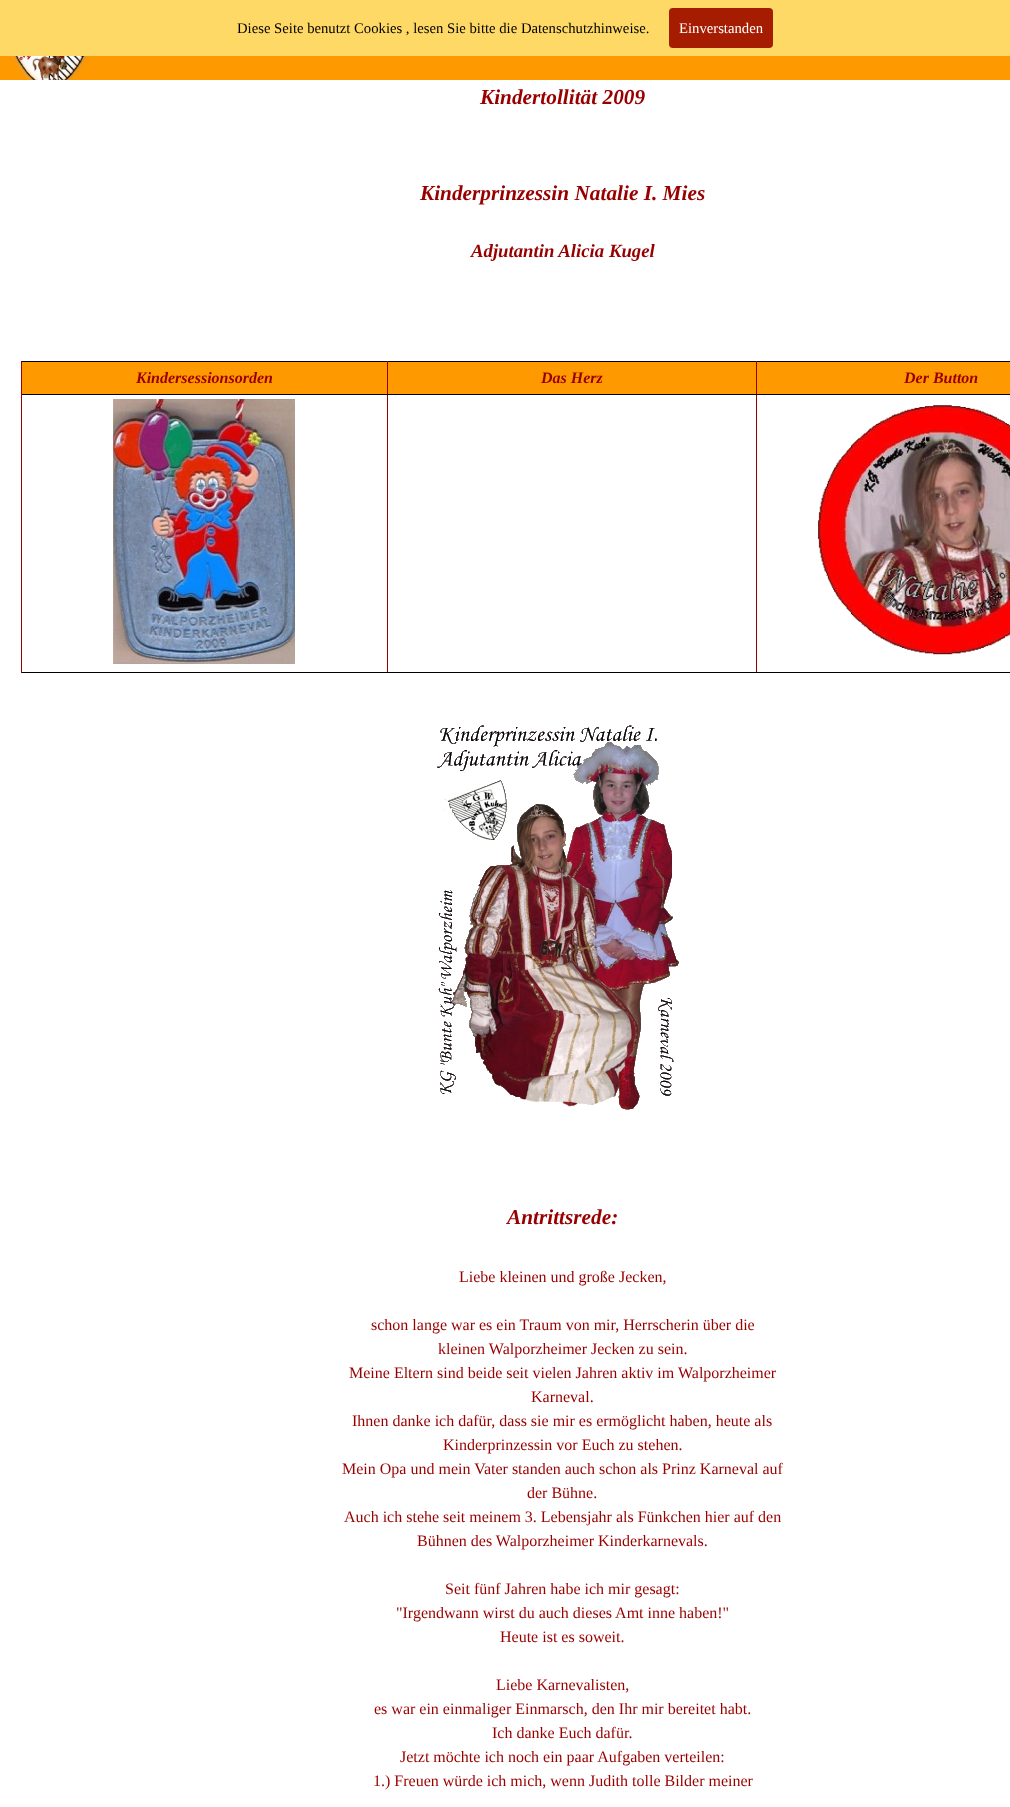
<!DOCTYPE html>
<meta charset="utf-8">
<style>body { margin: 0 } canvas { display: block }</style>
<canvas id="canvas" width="1010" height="1807"></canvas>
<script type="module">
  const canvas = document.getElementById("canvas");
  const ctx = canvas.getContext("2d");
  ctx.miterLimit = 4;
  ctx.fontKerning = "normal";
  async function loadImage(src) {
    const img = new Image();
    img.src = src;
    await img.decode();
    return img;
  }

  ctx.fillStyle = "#ffffff";
  ctx.fillRect(0, 0, 1010, 1807);
  ctx.fillStyle = "#ffd966";
  ctx.fillRect(0, 0, 1010, 56);
  ctx.font = "14.7px Liberation Serif";
  ctx.fillStyle = "#000000";
  ctx.fillText("Diese Seite benutzt Cookies , lesen Sie bitte die Datenschutzhinweise.", 237, 33);
  ctx.fillStyle = "#a61c00";
  ctx.beginPath();
  ctx.roundRect(669, 8, 104, 40, 4);
  ctx.fill();
  ctx.fillStyle = "#ffffff";
  ctx.fillText("Einverstanden", 679, 33);
  ctx.fillStyle = "#ff9900";
  ctx.fillRect(0, 56, 1010, 24);
  ctx.drawImage(await loadImage("img1.png"), 11, 56, 78, 24);
  ctx.font = "italic bold 21.3px Liberation Serif";
  ctx.fillStyle = "#980000";
  ctx.fillText("Kindertollität 2009", 480, 104);
  ctx.fillText("Kinderprinzessin Natalie I. Mies", 420, 200);
  ctx.font = "italic bold 18.75px Liberation Serif";
  ctx.fillText("Adjutantin Alicia Kugel", 471, 257);
  ctx.fillStyle = "#ff9900";
  ctx.fillRect(22, 362, 365, 32);
  ctx.fillStyle = "#000000";
  ctx.fillRect(21, 361, 989, 1);
  ctx.fillRect(756, 672, 254, 1);
  ctx.fillStyle = "#980000";
  ctx.fillRect(756, 394, 1, 279);
  ctx.fillStyle = "#000000";
  ctx.fillRect(756, 394, 254, 1);
  ctx.fillStyle = "#980000";
  ctx.fillRect(756, 361, 1, 34);
  ctx.fillStyle = "#000000";
  ctx.fillRect(387, 672, 370, 1);
  ctx.fillStyle = "#980000";
  ctx.fillRect(387, 394, 1, 279);
  ctx.fillStyle = "#000000";
  ctx.fillRect(387, 394, 370, 1);
  ctx.fillStyle = "#980000";
  ctx.fillRect(387, 361, 1, 34);
  ctx.fillStyle = "#000000";
  ctx.fillRect(21, 672, 367, 1);
  ctx.fillStyle = "#980000";
  ctx.fillRect(21, 394, 1, 279);
  ctx.fillStyle = "#000000";
  ctx.fillRect(21, 394, 367, 1);
  ctx.fillStyle = "#980000";
  ctx.fillRect(21, 361, 1, 34);
  ctx.font = "italic bold 16px Liberation Serif";
  ctx.fillText("Kindersessionsorden", 136, 383);
  ctx.fillStyle = "#ff9900";
  ctx.fillRect(388, 362, 368, 32);
  ctx.fillStyle = "#980000";
  ctx.fillText("Das Herz", 541, 383);
  ctx.fillStyle = "#ff9900";
  ctx.fillRect(757, 362, 253, 32);
  ctx.fillStyle = "#980000";
  ctx.fillText("Der Button", 904, 383);
  ctx.drawImage(await loadImage("img2.png"), 113, 399, 182, 265);
  ctx.drawImage(await loadImage("img3.png"), 818, 405, 192, 250);
  ctx.drawImage(await loadImage("img4.png"), 437, 725, 242, 385);
  ctx.font = "italic bold 21.3px Liberation Serif";
  ctx.fillText("Antrittsrede:", 507, 1224);
  ctx.font = "16px Liberation Serif";
  ctx.fillText("Liebe kleinen und große Jecken,", 459, 1282);
  ctx.fillText("schon lange war es ein Traum von mir, Herrscherin über die", 371, 1330);
  ctx.fillText("kleinen Walporzheimer Jecken zu sein.", 438, 1354);
  ctx.fillText("Meine Eltern sind beide seit vielen Jahren aktiv im Walporzheimer", 349, 1378);
  ctx.fillText("Karneval.", 531, 1402);
  ctx.fillText("Ihnen danke ich dafür, dass sie mir es ermöglicht haben, heute als", 352, 1426);
  ctx.fillText("Kinderprinzessin vor Euch zu stehen.", 443, 1450);
  ctx.fillText("Mein Opa und mein Vater standen auch schon als Prinz Karneval auf", 342, 1474);
  ctx.fillText("der Bühne.", 527, 1498);
  ctx.fillText("Auch ich stehe seit meinem 3. Lebensjahr als Fünkchen hier auf den", 344, 1522);
  ctx.fillText("Bühnen des Walporzheimer Kinderkarnevals.", 417, 1546);
  ctx.fillText("Seit fünf Jahren habe ich mir gesagt:", 445, 1594);
  ctx.fillText("\"Irgendwann wirst du auch dieses Amt inne haben!\"", 396, 1618);
  ctx.fillText("Heute ist es soweit.", 500, 1642);
  ctx.fillText("Liebe Karnevalisten,", 496, 1690);
  ctx.fillText("es war ein einmaliger Einmarsch, den Ihr mir bereitet habt.", 374, 1714);
  ctx.fillText("Ich danke Euch dafür.", 492, 1738);
  ctx.fillText("Jetzt möchte ich noch ein paar Aufgaben verteilen:", 400, 1762);
  ctx.fillText("1.) Freuen würde ich mich, wenn Judith tolle Bilder meiner", 373, 1786);
</script>
